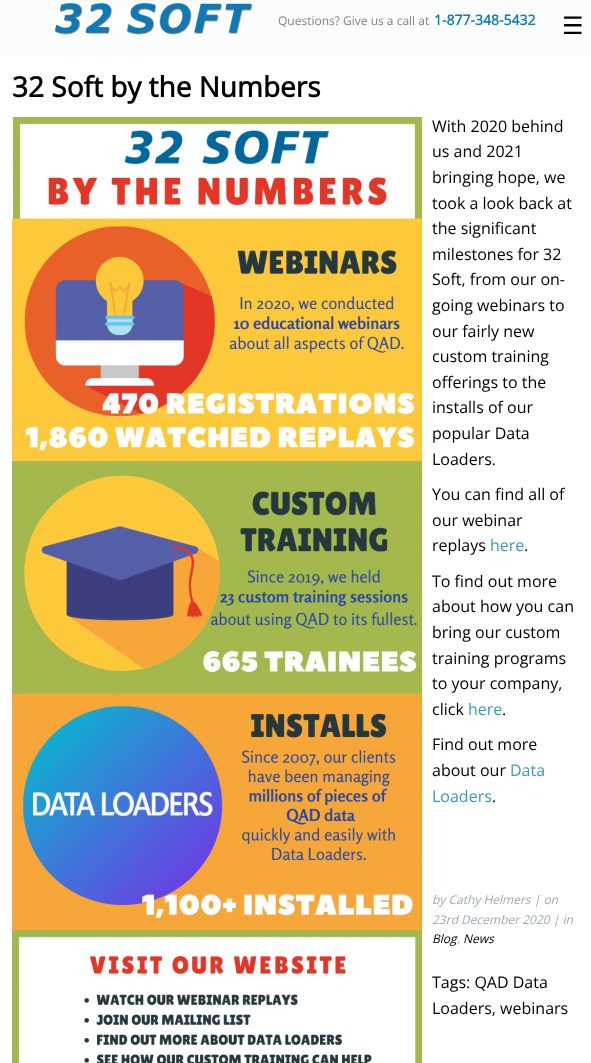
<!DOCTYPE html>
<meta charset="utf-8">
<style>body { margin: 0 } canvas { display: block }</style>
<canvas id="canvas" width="591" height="1063"></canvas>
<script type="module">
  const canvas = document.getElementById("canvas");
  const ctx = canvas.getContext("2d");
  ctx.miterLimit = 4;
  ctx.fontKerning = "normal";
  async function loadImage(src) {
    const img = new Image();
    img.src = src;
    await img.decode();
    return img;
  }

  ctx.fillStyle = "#ffffff";
  ctx.fillRect(0, 0, 591, 1063);
  ctx.fillStyle = "#fbfdfd";
  ctx.fillRect(0, 0, 591, 56);
  ctx.drawImage(await loadImage("img1.png"), 55, 3, 198, 32);
  ctx.font = "12px Open Sans";
  ctx.fillStyle = "#838383";
  ctx.fillText("Questions? Give us a call at", 278, 25);
  ctx.font = "bold 14px Open Sans";
  ctx.fillStyle = "#0c7ab8";
  ctx.fillText("1-877-348-5432", 434, 25);
  ctx.font = "24px DejaVu Sans";
  ctx.fillStyle = "#000000";
  ctx.fillText("☰", 562, 34);
  ctx.font = "bold 28px Open Sans";
  ctx.fillText("32 Soft by the Numbers", 12, 97);
  ctx.drawImage(await loadImage("img2.png"), 12, 117, 410, 946);
  ctx.font = "16px Open Sans";
  ctx.fillText("With 2020 behind", 432, 132);
  ctx.fillText("us and 2021", 432, 157);
  ctx.fillText("bringing hope, we", 432, 183);
  ctx.fillText("took a look back at", 432, 209);
  ctx.fillText("the significant", 432, 234);
  ctx.fillText("milestones for 32", 432, 260);
  ctx.fillText("Soft, from our on-", 432, 285);
  ctx.fillText("going webinars to", 432, 311);
  ctx.fillText("our fairly new", 432, 337);
  ctx.fillText("custom training", 432, 362);
  ctx.fillText("offerings to the", 432, 388);
  ctx.fillText("installs of our", 432, 413);
  ctx.fillText("popular Data", 432, 439);
  ctx.fillText("Loaders.", 432, 465);
  ctx.fillText("You can find all of", 432, 500);
  ctx.fillText("our webinar", 432, 526);
  ctx.fillText("replays", 432, 551);
  ctx.fillStyle = "#3a97ca";
  ctx.fillText("here", 490, 551);
  ctx.fillStyle = "#000000";
  ctx.fillText(".", 524, 551);
  ctx.fillText("To find out more", 432, 587);
  ctx.fillText("about how you can", 432, 612);
  ctx.fillText("bring our custom", 432, 638);
  ctx.fillText("training programs", 432, 664);
  ctx.fillText("to your company,", 432, 689);
  ctx.fillText("click", 432, 715);
  ctx.fillStyle = "#3a97ca";
  ctx.fillText("here", 468, 715);
  ctx.fillStyle = "#000000";
  ctx.fillText(".", 502, 715);
  ctx.fillText("Find out more", 432, 750);
  ctx.fillText("about our", 432, 776);
  ctx.fillStyle = "#3a97ca";
  ctx.fillText("Data", 510, 776);
  ctx.fillText("Loaders", 432, 802);
  ctx.fillStyle = "#000000";
  ctx.fillText(".", 492, 802);
  ctx.font = "italic 12px Open Sans";
  ctx.fillStyle = "#9eaab9";
  ctx.fillText("by Cathy Helmers | on", 432, 904);
  ctx.fillText("23rd December 2020 | in", 432, 924);
  ctx.fillStyle = "#000000";
  ctx.fillText("Blog", 432, 943);
  ctx.fillText("News", 463, 943);
  ctx.fillStyle = "#9eaab9";
  ctx.fillText(",", 457, 943);
  ctx.font = "16px Open Sans";
  ctx.fillStyle = "#000000";
  ctx.fillText("Tags: QAD Data", 432, 988);
  ctx.fillText("Loaders, webinars", 432, 1014);
</script>
